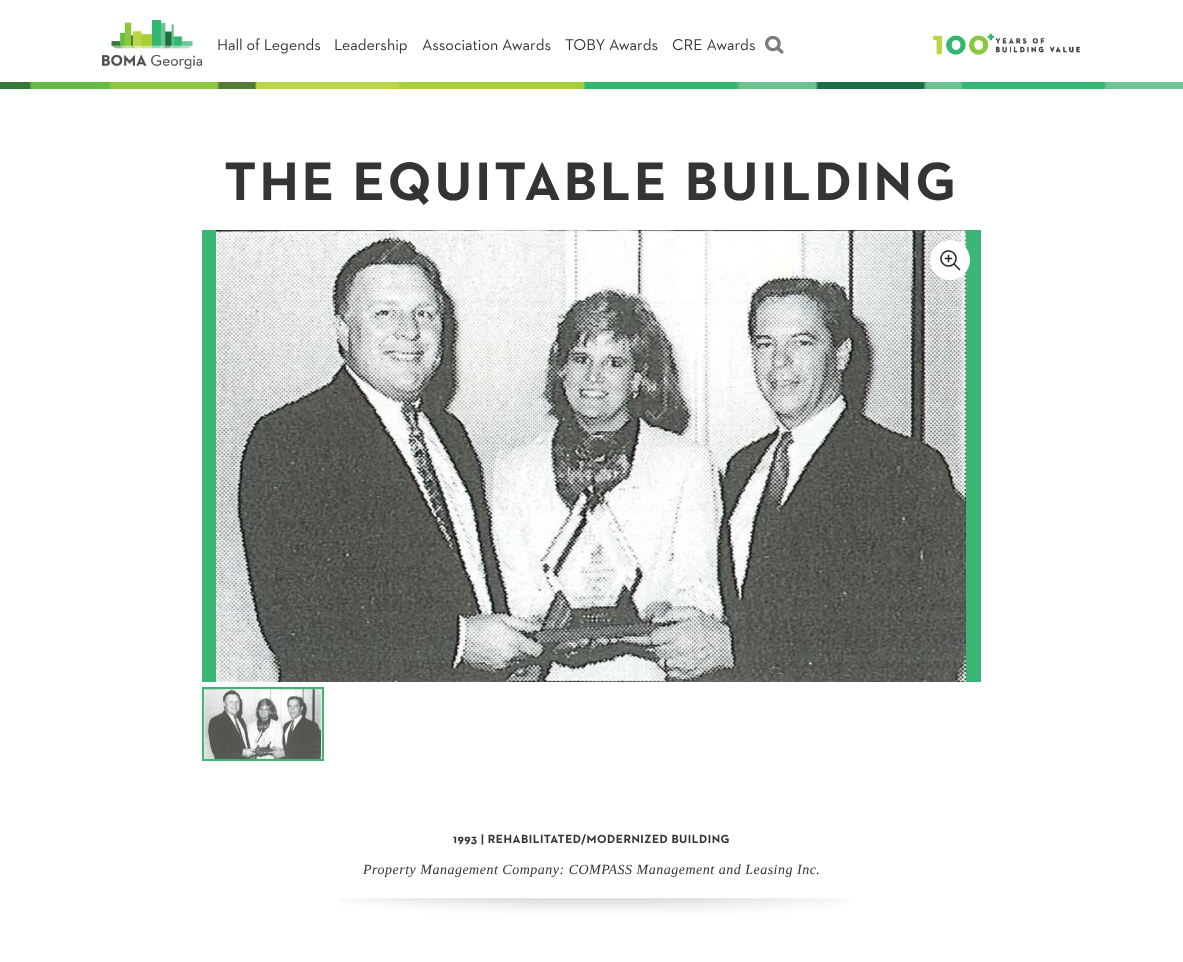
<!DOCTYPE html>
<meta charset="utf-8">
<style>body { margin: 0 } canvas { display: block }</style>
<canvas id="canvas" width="1183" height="962"></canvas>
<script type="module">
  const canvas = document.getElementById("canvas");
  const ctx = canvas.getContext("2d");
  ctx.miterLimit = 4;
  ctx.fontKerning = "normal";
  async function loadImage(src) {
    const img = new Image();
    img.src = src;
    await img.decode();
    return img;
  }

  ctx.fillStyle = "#ffffff";
  ctx.fillRect(0, 0, 1183, 962);
  ctx.drawImage(await loadImage("img1.png"), 102, 20, 100, 49);
  ctx.font = "16px 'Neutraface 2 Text'";
  ctx.fillStyle = "#353434";
  ctx.fillText("Hall of Legends", 217, 50);
  ctx.fillText("Leadership", 334, 50);
  ctx.fillText("Association Awards", 422, 50);
  ctx.fillText("TOBY Awards", 565, 50);
  ctx.fillText("CRE Awards", 672, 50);
  ctx.drawImage(await loadImage("img2.png"), 765, 36, 19, 18);
  ctx.drawImage(await loadImage("img3.png"), 933, 33, 147, 22);
  ctx.drawImage(await loadImage("img4.png"), 0, 82, 1183, 7);
  ctx.letterSpacing = "3px";
  ctx.font = "bold 55px 'Neutraface 2 Text'";
  ctx.fillText("THE EQUITABLE BUILDING", 224, 200);
  ctx.fillStyle = "#3bb674";
  ctx.fillRect(202, 230, 779, 452);
  ctx.drawImage(await loadImage("img5.png"), 216, 230, 750, 452);
  ctx.fillStyle = "#ffffff";
  ctx.beginPath();
  ctx.arc(950, 260, 20, 0, Math.PI * 2);
  ctx.fill();
  ctx.drawImage(await loadImage("img6.png"), 940, 250, 21, 21);
  ctx.fillStyle = "#e8e8e8";
  ctx.beginPath();
  ctx.rect(203, 688, 120, 72);
  ctx.fill();
  ctx.strokeStyle = "#3bb674";
  ctx.lineWidth = 2;
  ctx.stroke();
  ctx.drawImage(await loadImage("img7.png"), 205, 689, 116, 70);
  ctx.letterSpacing = "0.5px";
  ctx.font = "bold 12px 'Neutraface 2 Text'";
  ctx.fillStyle = "#353434";
  ctx.fillText("1993 | REHABILITATED/MODERNIZED BUILDING", 453, 843);
  ctx.font = "italic 14px Liberation Serif";
  ctx.fillText("Property Management Company: COMPASS Management and Leasing Inc.", 363, 874);
  ctx.drawImage(await loadImage("img8.png"), 338, 898, 511, 15);
</script>
